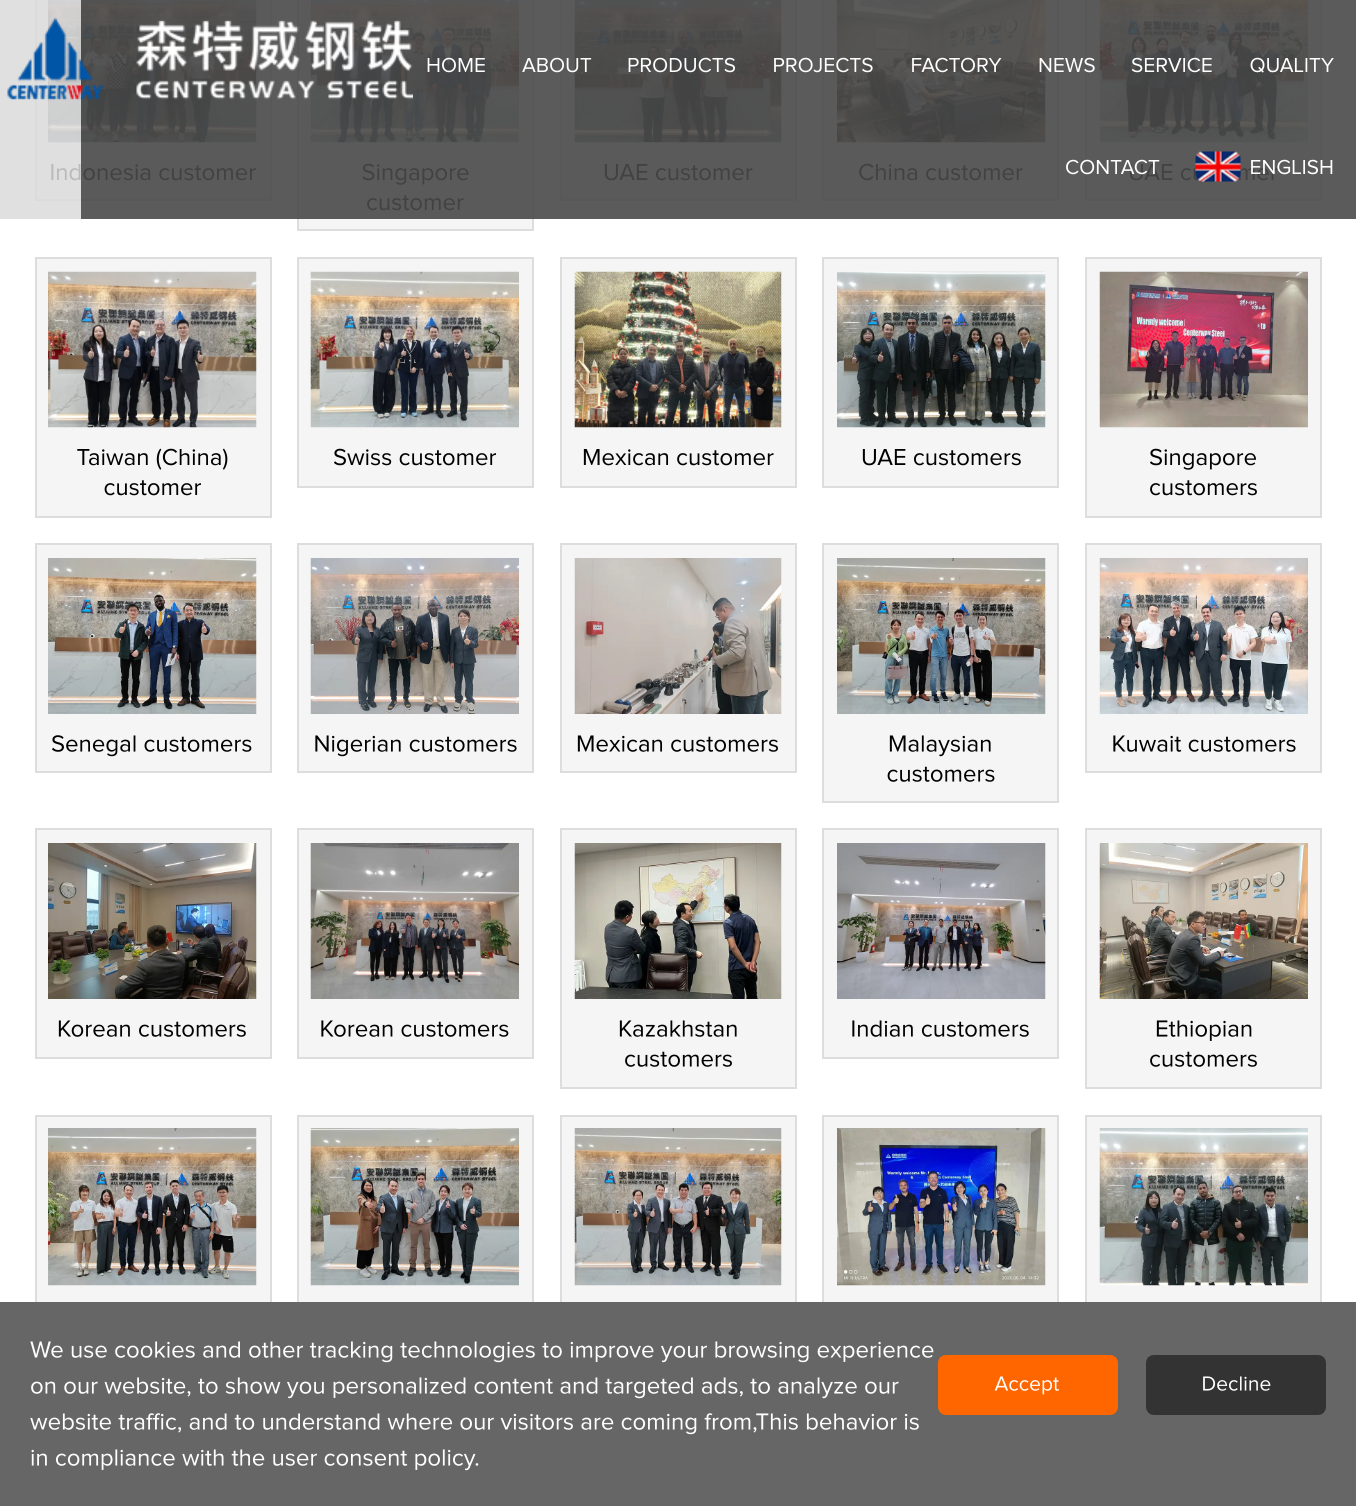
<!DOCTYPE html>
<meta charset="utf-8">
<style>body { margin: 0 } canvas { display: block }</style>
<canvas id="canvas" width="1356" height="1506"></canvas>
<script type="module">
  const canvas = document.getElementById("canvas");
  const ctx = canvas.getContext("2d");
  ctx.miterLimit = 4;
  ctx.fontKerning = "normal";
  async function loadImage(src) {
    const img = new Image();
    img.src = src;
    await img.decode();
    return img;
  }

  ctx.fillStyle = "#ffffff";
  ctx.fillRect(0, 0, 1356, 1506);
  ctx.fillStyle = "#f5f5f5";
  ctx.beginPath();
  ctx.rect(36, -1, 235, 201);
  ctx.fill();
  ctx.strokeStyle = "#dddddd";
  ctx.lineWidth = 2;
  ctx.stroke();
  ctx.drawImage(await loadImage("img1.png"), 48, 0, 209, 143);
  ctx.drawImage(await loadImage("img2.png"), 51, 164, 205, 17);
  ctx.beginPath();
  ctx.rect(298, -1, 235, 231);
  ctx.fill();
  ctx.stroke();
  ctx.drawImage(await loadImage("img3.png"), 310, 0, 209, 143);
  ctx.drawImage(await loadImage("img4.png"), 362, 163, 107, 22);
  ctx.drawImage(await loadImage("img5.png"), 367, 195, 97, 16);
  ctx.beginPath();
  ctx.rect(561, -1, 235, 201);
  ctx.fill();
  ctx.stroke();
  ctx.drawImage(await loadImage("img6.png"), 574, 0, 208, 143);
  ctx.drawImage(await loadImage("img7.png"), 604, 164, 149, 17);
  ctx.beginPath();
  ctx.rect(823, -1, 235, 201);
  ctx.fill();
  ctx.stroke();
  ctx.drawImage(await loadImage("img8.png"), 837, 0, 209, 143);
  ctx.drawImage(await loadImage("img9.png"), 859, 163, 164, 18);
  ctx.beginPath();
  ctx.rect(1086, -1, 235, 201);
  ctx.fill();
  ctx.stroke();
  ctx.drawImage(await loadImage("img10.png"), 1099, 0, 209, 143);
  ctx.drawImage(await loadImage("img7.png"), 1129, 164, 149, 17);
  ctx.beginPath();
  ctx.rect(36, 258, 235, 259);
  ctx.fill();
  ctx.stroke();
  ctx.drawImage(await loadImage("img11.png"), 48, 271, 209, 157);
  ctx.drawImage(await loadImage("img12.png"), 77, 448, 151, 22);
  ctx.drawImage(await loadImage("img13.png"), 104, 480, 97, 16);
  ctx.beginPath();
  ctx.rect(298, 258, 235, 229);
  ctx.fill();
  ctx.stroke();
  ctx.drawImage(await loadImage("img14.png"), 310, 271, 209, 157);
  ctx.drawImage(await loadImage("img15.png"), 334, 448, 162, 18);
  ctx.beginPath();
  ctx.rect(561, 258, 235, 229);
  ctx.fill();
  ctx.stroke();
  ctx.drawImage(await loadImage("img16.png"), 574, 271, 208, 157);
  ctx.drawImage(await loadImage("img17.png"), 583, 449, 191, 17);
  ctx.beginPath();
  ctx.rect(823, 258, 235, 229);
  ctx.fill();
  ctx.stroke();
  ctx.drawImage(await loadImage("img18.png"), 837, 271, 209, 157);
  ctx.drawImage(await loadImage("img19.png"), 862, 449, 159, 17);
  ctx.beginPath();
  ctx.rect(1086, 258, 235, 259);
  ctx.fill();
  ctx.stroke();
  ctx.drawImage(await loadImage("img20.png"), 1099, 271, 209, 157);
  ctx.drawImage(await loadImage("img21.png"), 1150, 448, 106, 22);
  ctx.drawImage(await loadImage("img22.png"), 1150, 480, 107, 16);
  ctx.beginPath();
  ctx.rect(36, 544, 235, 228);
  ctx.fill();
  ctx.stroke();
  ctx.drawImage(await loadImage("img23.png"), 48, 558, 209, 156);
  ctx.drawImage(await loadImage("img24.png"), 52, 735, 200, 22);
  ctx.beginPath();
  ctx.rect(298, 544, 235, 228);
  ctx.fill();
  ctx.stroke();
  ctx.drawImage(await loadImage("img25.png"), 310, 558, 209, 156);
  ctx.drawImage(await loadImage("img26.png"), 315, 735, 202, 22);
  ctx.beginPath();
  ctx.rect(561, 544, 235, 228);
  ctx.fill();
  ctx.stroke();
  ctx.drawImage(await loadImage("img27.png"), 574, 558, 208, 156);
  ctx.drawImage(await loadImage("img28.png"), 577, 735, 201, 17);
  ctx.beginPath();
  ctx.rect(823, 544, 235, 258);
  ctx.fill();
  ctx.stroke();
  ctx.drawImage(await loadImage("img29.png"), 837, 558, 209, 156);
  ctx.drawImage(await loadImage("img30.png"), 889, 735, 102, 22);
  ctx.drawImage(await loadImage("img31.png"), 887, 766, 108, 16);
  ctx.beginPath();
  ctx.rect(1086, 544, 235, 228);
  ctx.fill();
  ctx.stroke();
  ctx.drawImage(await loadImage("img32.png"), 1099, 558, 209, 156);
  ctx.drawImage(await loadImage("img33.png"), 1113, 735, 183, 17);
  ctx.beginPath();
  ctx.rect(36, 829, 235, 229);
  ctx.fill();
  ctx.stroke();
  ctx.drawImage(await loadImage("img34.png"), 48, 843, 209, 156);
  ctx.drawImage(await loadImage("img35.png"), 58, 1020, 188, 17);
  ctx.beginPath();
  ctx.rect(298, 829, 235, 229);
  ctx.fill();
  ctx.stroke();
  ctx.drawImage(await loadImage("img36.png"), 310, 843, 209, 156);
  ctx.drawImage(await loadImage("img37.png"), 321, 1020, 188, 17);
  ctx.beginPath();
  ctx.rect(561, 829, 235, 259);
  ctx.fill();
  ctx.stroke();
  ctx.drawImage(await loadImage("img38.png"), 574, 843, 208, 156);
  ctx.drawImage(await loadImage("img39.png"), 619, 1020, 118, 17);
  ctx.drawImage(await loadImage("img40.png"), 625, 1051, 107, 16);
  ctx.beginPath();
  ctx.rect(823, 829, 235, 229);
  ctx.fill();
  ctx.stroke();
  ctx.drawImage(await loadImage("img41.png"), 837, 843, 209, 156);
  ctx.drawImage(await loadImage("img42.png"), 852, 1020, 177, 17);
  ctx.beginPath();
  ctx.rect(1086, 829, 235, 259);
  ctx.fill();
  ctx.stroke();
  ctx.drawImage(await loadImage("img43.png"), 1099, 843, 209, 156);
  ctx.drawImage(await loadImage("img44.png"), 1156, 1020, 96, 21);
  ctx.drawImage(await loadImage("img40.png"), 1150, 1051, 107, 16);
  ctx.fillRect(37, 1117, 233, 185);
  ctx.strokeRect(36, 1116, 235, 257);
  ctx.drawImage(await loadImage("img45.png"), 48, 1128, 209, 158);
  ctx.fillRect(299, 1117, 233, 185);
  ctx.strokeRect(298, 1116, 235, 227);
  ctx.drawImage(await loadImage("img46.png"), 310, 1128, 209, 158);
  ctx.fillRect(562, 1117, 233, 185);
  ctx.strokeRect(561, 1116, 235, 227);
  ctx.drawImage(await loadImage("img47.png"), 574, 1128, 208, 158);
  ctx.fillRect(824, 1117, 233, 185);
  ctx.strokeRect(823, 1116, 235, 227);
  ctx.drawImage(await loadImage("img48.png"), 837, 1128, 209, 158);
  ctx.fillRect(1087, 1117, 233, 185);
  ctx.strokeRect(1086, 1116, 235, 227);
  ctx.drawImage(await loadImage("img49.png"), 1099, 1128, 209, 158);
  ctx.fillStyle = "rgba(218, 218, 218, 0.85)";
  ctx.fillRect(0, 0, 81, 219);
  ctx.fillStyle = "rgba(73, 73, 73, 0.9)";
  ctx.fillRect(81, 0, 1275, 219);
  ctx.drawImage(await loadImage("img50.png"), 7, 17, 406, 83);
  ctx.drawImage(await loadImage("img51.png"), 427, 57, 58, 16);
  ctx.drawImage(await loadImage("img52.png"), 522, 57, 70, 16);
  ctx.drawImage(await loadImage("img53.png"), 628, 57, 107, 16);
  ctx.drawImage(await loadImage("img54.png"), 774, 57, 99, 16);
  ctx.drawImage(await loadImage("img55.png"), 912, 57, 90, 16);
  ctx.drawImage(await loadImage("img56.png"), 1039, 57, 56, 16);
  ctx.drawImage(await loadImage("img57.png"), 1131, 57, 81, 16);
  ctx.drawImage(await loadImage("img58.png"), 1250, 57, 84, 16);
  ctx.drawImage(await loadImage("img59.png"), 1066, 159, 94, 16);
  ctx.drawImage(await loadImage("img60.png"), 1195, 151, 46, 31);
  ctx.drawImage(await loadImage("img61.png"), 1251, 159, 82, 16);
  ctx.fillStyle = "#666666";
  ctx.fillRect(0, 1302, 1356, 204);
  ctx.drawImage(await loadImage("img62.png"), 30, 1341, 904, 22);
  ctx.drawImage(await loadImage("img63.png"), 31, 1377, 868, 22);
  ctx.drawImage(await loadImage("img64.png"), 30, 1413, 889, 22);
  ctx.drawImage(await loadImage("img65.png"), 31, 1449, 448, 22);
  ctx.fillStyle = "#ff6600";
  ctx.beginPath();
  ctx.roundRect(938, 1355, 180, 60, 8);
  ctx.fill();
  ctx.drawImage(await loadImage("img66.png"), 994, 1376, 65, 19);
  ctx.fillStyle = "#333333";
  ctx.beginPath();
  ctx.roundRect(1146, 1355, 180, 60, 8);
  ctx.fill();
  ctx.drawImage(await loadImage("img67.png"), 1203, 1376, 68, 15);
</script>
